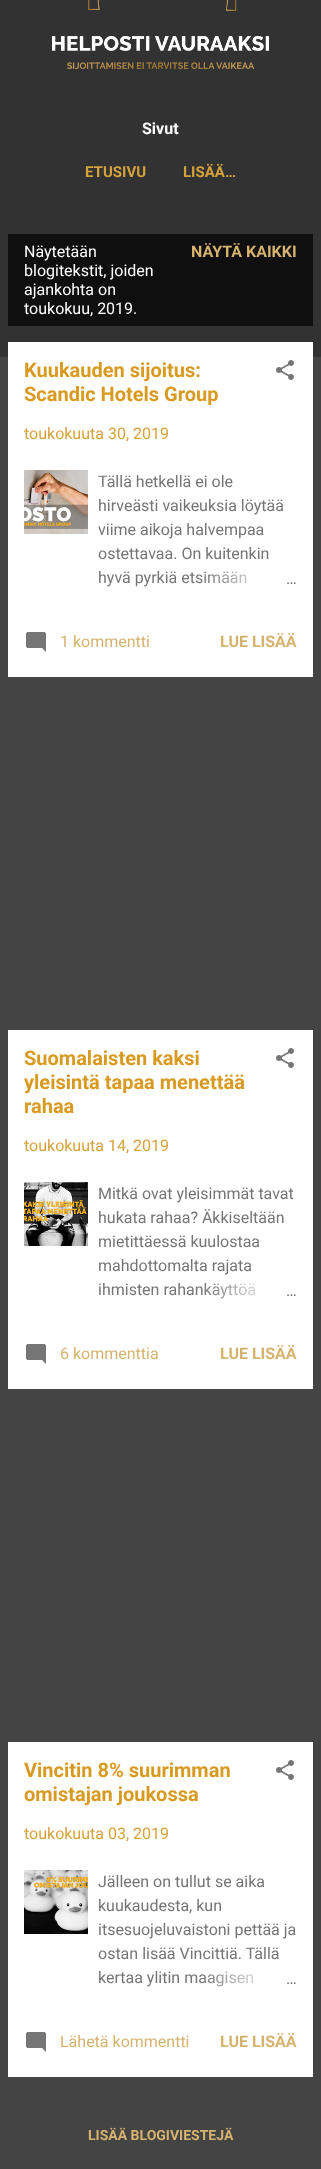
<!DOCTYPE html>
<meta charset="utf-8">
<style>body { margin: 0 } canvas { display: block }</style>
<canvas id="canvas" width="321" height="2169"></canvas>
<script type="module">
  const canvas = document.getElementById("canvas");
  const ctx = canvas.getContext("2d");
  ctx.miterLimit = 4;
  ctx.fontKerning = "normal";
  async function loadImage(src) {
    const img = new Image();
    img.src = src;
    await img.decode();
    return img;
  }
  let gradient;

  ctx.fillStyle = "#444444";
  ctx.fillRect(0, 0, 321, 2169);
  ctx.fillStyle = "#323232";
  ctx.fillRect(0, 0, 321, 357);
  ctx.drawImage(await loadImage("img1.png"), 52, 0, 217, 69);
  ctx.font = "bold 16px Roboto";
  ctx.fillStyle = "#ffffff";
  ctx.fillText("Sivut", 142, 134);
  ctx.font = "bold 15px Roboto";
  ctx.fillStyle = "#d6a23b";
  ctx.fillText("ETUSIVU", 85, 177);
  ctx.fillText("LISÄÄ…", 183, 177);
  ctx.fillStyle = "#0f0f0f";
  ctx.fillRect(8, 234, 305, 92);
  ctx.font = "16px Roboto";
  ctx.fillStyle = "#ffffff";
  ctx.fillText("Näytetään", 24, 257);
  ctx.fillText("blogitekstit, joiden", 24, 276);
  ctx.fillText("ajankohta on", 24, 295);
  ctx.fillText("toukokuu, 2019.", 24, 314);
  ctx.font = "bold 16px Roboto";
  ctx.fillStyle = "#d5b36f";
  ctx.fillText("NÄYTÄ KAIKKI", 191, 257);
  ctx.fillStyle = "#ffffff";
  ctx.fillRect(8, 342, 305, 335);
  ctx.font = "bold 20px Roboto";
  ctx.fillStyle = "#d89a20";
  ctx.fillText("Kuukauden sijoitus:", 24, 377);
  ctx.fillText("Scandic Hotels Group", 24, 401);
  ctx.drawImage(await loadImage("img2.png"), 276, 360, 18, 20);
  ctx.font = "16px Roboto";
  ctx.fillStyle = "#d6a23b";
  ctx.fillText("toukokuuta 30, 2019", 24, 439);
  ctx.drawImage(await loadImage("img3.png"), 24, 470, 64, 64);
  ctx.fillStyle = "#757575";
  ctx.fillText("Tällä hetkellä ei ole", 98, 487);
  ctx.fillText("hirveästi vaikeuksia löytää", 98, 511);
  ctx.fillText("viime aikoja halvempaa", 98, 535);
  ctx.fillText("ostettavaa. On kuitenkin", 98, 559);
  ctx.fillText("hyvä pyrkiä etsimään", 98, 583);
  gradient = ctx.createLinearGradient(297, 578, 201, 578);
  gradient.addColorStop(0, "#ffffff");
  gradient.addColorStop(0.2, "#ffffff");
  gradient.addColorStop(1, "rgba(255, 255, 255, 0)");
  ctx.fillStyle = gradient;
  ctx.fillRect(204, 571, 43, 13);
  ctx.fillStyle = "#757575";
  ctx.fillText("…", 286, 584);
  ctx.drawImage(await loadImage("img4.png"), 26, 632, 20, 20);
  ctx.fillStyle = "#d5b36f";
  ctx.fillText("1 kommentti", 60, 647);
  ctx.font = "bold 16px Roboto";
  ctx.fillText("LUE LISÄÄ", 220, 647);
  ctx.fillStyle = "#ffffff";
  ctx.fillRect(8, 1030, 305, 359);
  ctx.font = "bold 20px Roboto";
  ctx.fillStyle = "#d89a20";
  ctx.fillText("Suomalaisten kaksi", 24, 1065);
  ctx.fillText("yleisintä tapaa menettää", 24, 1089);
  ctx.fillText("rahaa", 24, 1113);
  ctx.drawImage(await loadImage("img2.png"), 276, 1048, 18, 20);
  ctx.font = "16px Roboto";
  ctx.fillStyle = "#d6a23b";
  ctx.fillText("toukokuuta 14, 2019", 24, 1151);
  ctx.drawImage(await loadImage("img5.png"), 24, 1182, 64, 64);
  ctx.fillStyle = "#757575";
  ctx.fillText("Mitkä ovat yleisimmät tavat", 98, 1199);
  ctx.fillText("hukata rahaa? Äkkiseltään", 98, 1223);
  ctx.fillText("mietittäessä kuulostaa", 98, 1247);
  ctx.fillText("mahdottomalta rajata", 98, 1271);
  ctx.fillText("ihmisten rahankäyttöä", 98, 1295);
  gradient = ctx.createLinearGradient(297, 1290, 201, 1290);
  gradient.addColorStop(0, "#ffffff");
  gradient.addColorStop(0.2, "#ffffff");
  gradient.addColorStop(1, "rgba(255, 255, 255, 0)");
  ctx.fillStyle = gradient;
  ctx.fillRect(204, 1283, 51, 16);
  ctx.fillStyle = "#757575";
  ctx.fillText("…", 286, 1296);
  ctx.drawImage(await loadImage("img4.png"), 26, 1344, 20, 20);
  ctx.fillStyle = "#d5b36f";
  ctx.fillText("6 kommenttia", 60, 1359);
  ctx.font = "bold 16px Roboto";
  ctx.fillText("LUE LISÄÄ", 220, 1359);
  ctx.fillStyle = "#ffffff";
  ctx.fillRect(8, 1742, 305, 335);
  ctx.font = "bold 20px Roboto";
  ctx.fillStyle = "#d89a20";
  ctx.fillText("Vincitin 8% suurimman", 24, 1777);
  ctx.fillText("omistajan joukossa", 24, 1801);
  ctx.drawImage(await loadImage("img2.png"), 276, 1760, 18, 20);
  ctx.font = "16px Roboto";
  ctx.fillStyle = "#d6a23b";
  ctx.fillText("toukokuuta 03, 2019", 24, 1839);
  ctx.drawImage(await loadImage("img6.png"), 24, 1870, 64, 64);
  ctx.fillStyle = "#757575";
  ctx.fillText("Jälleen on tullut se aika", 98, 1887);
  ctx.fillText("kuukaudesta, kun", 98, 1911);
  ctx.fillText("itsesuojeluvaistoni pettää ja", 98, 1935);
  ctx.fillText("ostan lisää Vincittiä. Tällä", 98, 1959);
  ctx.fillText("kertaa ylitin maagisen", 98, 1983);
  gradient = ctx.createLinearGradient(297, 1978, 201, 1978);
  gradient.addColorStop(0, "#ffffff");
  gradient.addColorStop(0.2, "#ffffff");
  gradient.addColorStop(1, "rgba(255, 255, 255, 0)");
  ctx.fillStyle = gradient;
  ctx.fillRect(203, 1971, 50, 16);
  ctx.fillStyle = "#757575";
  ctx.fillText("…", 286, 1984);
  ctx.drawImage(await loadImage("img4.png"), 26, 2032, 20, 20);
  ctx.fillStyle = "#d5b36f";
  ctx.fillText("Lähetä kommentti", 60, 2047);
  ctx.font = "bold 16px Roboto";
  ctx.fillText("LUE LISÄÄ", 220, 2047);
  ctx.font = "bold 14px Roboto";
  ctx.fillText("LISÄÄ BLOGIVIESTEJÄ", 88, 2140);
</script>
